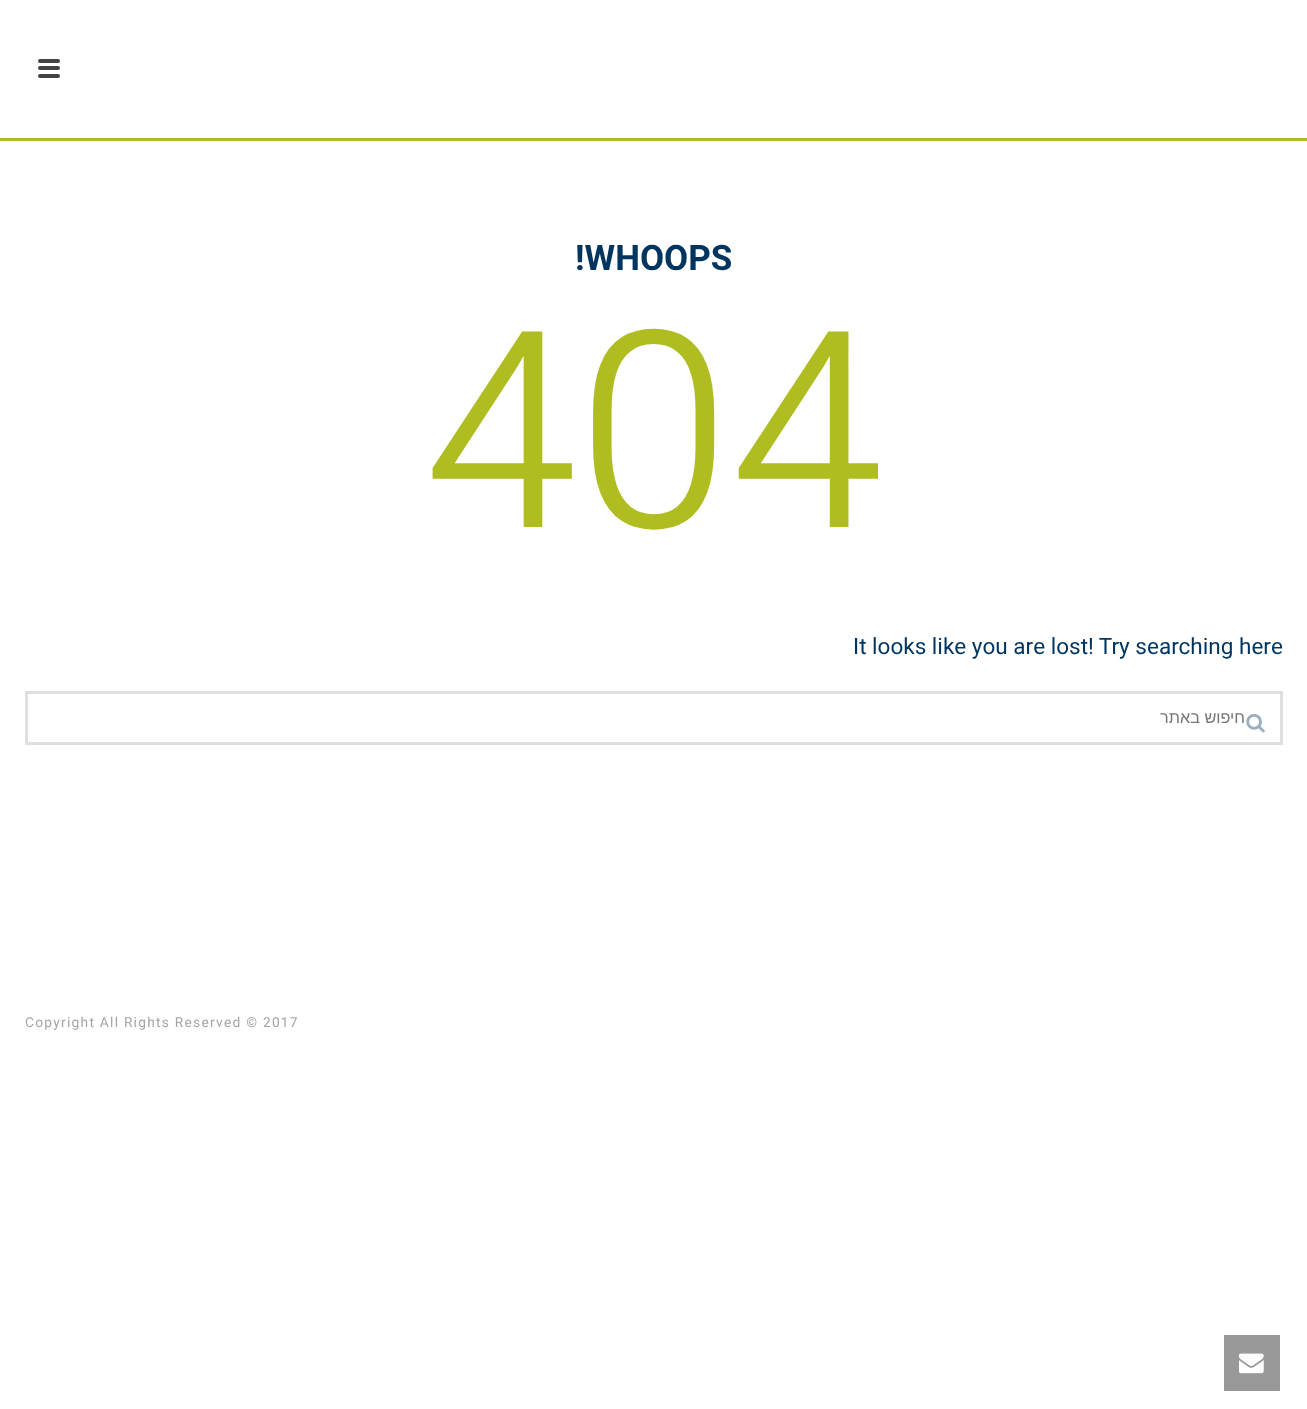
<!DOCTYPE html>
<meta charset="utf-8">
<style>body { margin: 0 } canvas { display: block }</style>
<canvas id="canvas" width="1307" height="1409"></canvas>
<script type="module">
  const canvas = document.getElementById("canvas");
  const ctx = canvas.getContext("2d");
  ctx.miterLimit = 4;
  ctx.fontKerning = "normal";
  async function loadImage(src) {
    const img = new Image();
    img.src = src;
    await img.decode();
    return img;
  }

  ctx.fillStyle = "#ffffff";
  ctx.fillRect(0, 0, 1307, 1409);
  ctx.fillStyle = "#afbd21";
  ctx.fillRect(0, 138, 1307, 3);
  ctx.fillStyle = "#444444";
  ctx.beginPath();
  ctx.roundRect(38, 59, 22, 4, 2);
  ctx.fill();
  ctx.beginPath();
  ctx.roundRect(38, 66, 22, 4, 2);
  ctx.fill();
  ctx.beginPath();
  ctx.roundRect(38, 74, 22, 4, 2);
  ctx.fill();
  ctx.font = "bold 35px Heebo";
  ctx.fillStyle = "#00355f";
  ctx.fillText("!WHOOPS", 575, 270);
  ctx.font = "300 275px Heebo";
  ctx.fillStyle = "#afbd21";
  ctx.fillText("404", 424, 527);
  ctx.font = "22.5px Heebo";
  ctx.fillStyle = "#00355f";
  ctx.fillText("It looks like you are lost! Try searching here", 853, 654);
  ctx.strokeStyle = "#dfdfdf";
  ctx.lineWidth = 3;
  ctx.strokeRect(26.5, 692.5, 1255, 51);
  ctx.direction = "rtl";
  ctx.font = "16.25px Liberation Sans";
  ctx.fillStyle = "#757575";
  ctx.fillText("חיפוש באתר", 1245, 723);
  ctx.drawImage(await loadImage("img1.png"), 1246, 714, 19, 19);
  ctx.letterSpacing = "1.25px";
  ctx.direction = "ltr";
  ctx.font = "13.75px Heebo";
  ctx.fillStyle = "#a3a5a7";
  ctx.fillText("Copyright All Rights Reserved © 2017", 25, 1027);
  ctx.fillStyle = "#999999";
  ctx.fillRect(1224, 1335, 56, 56);
  ctx.drawImage(await loadImage("img2.png"), 1239, 1353, 25, 21);
</script>
